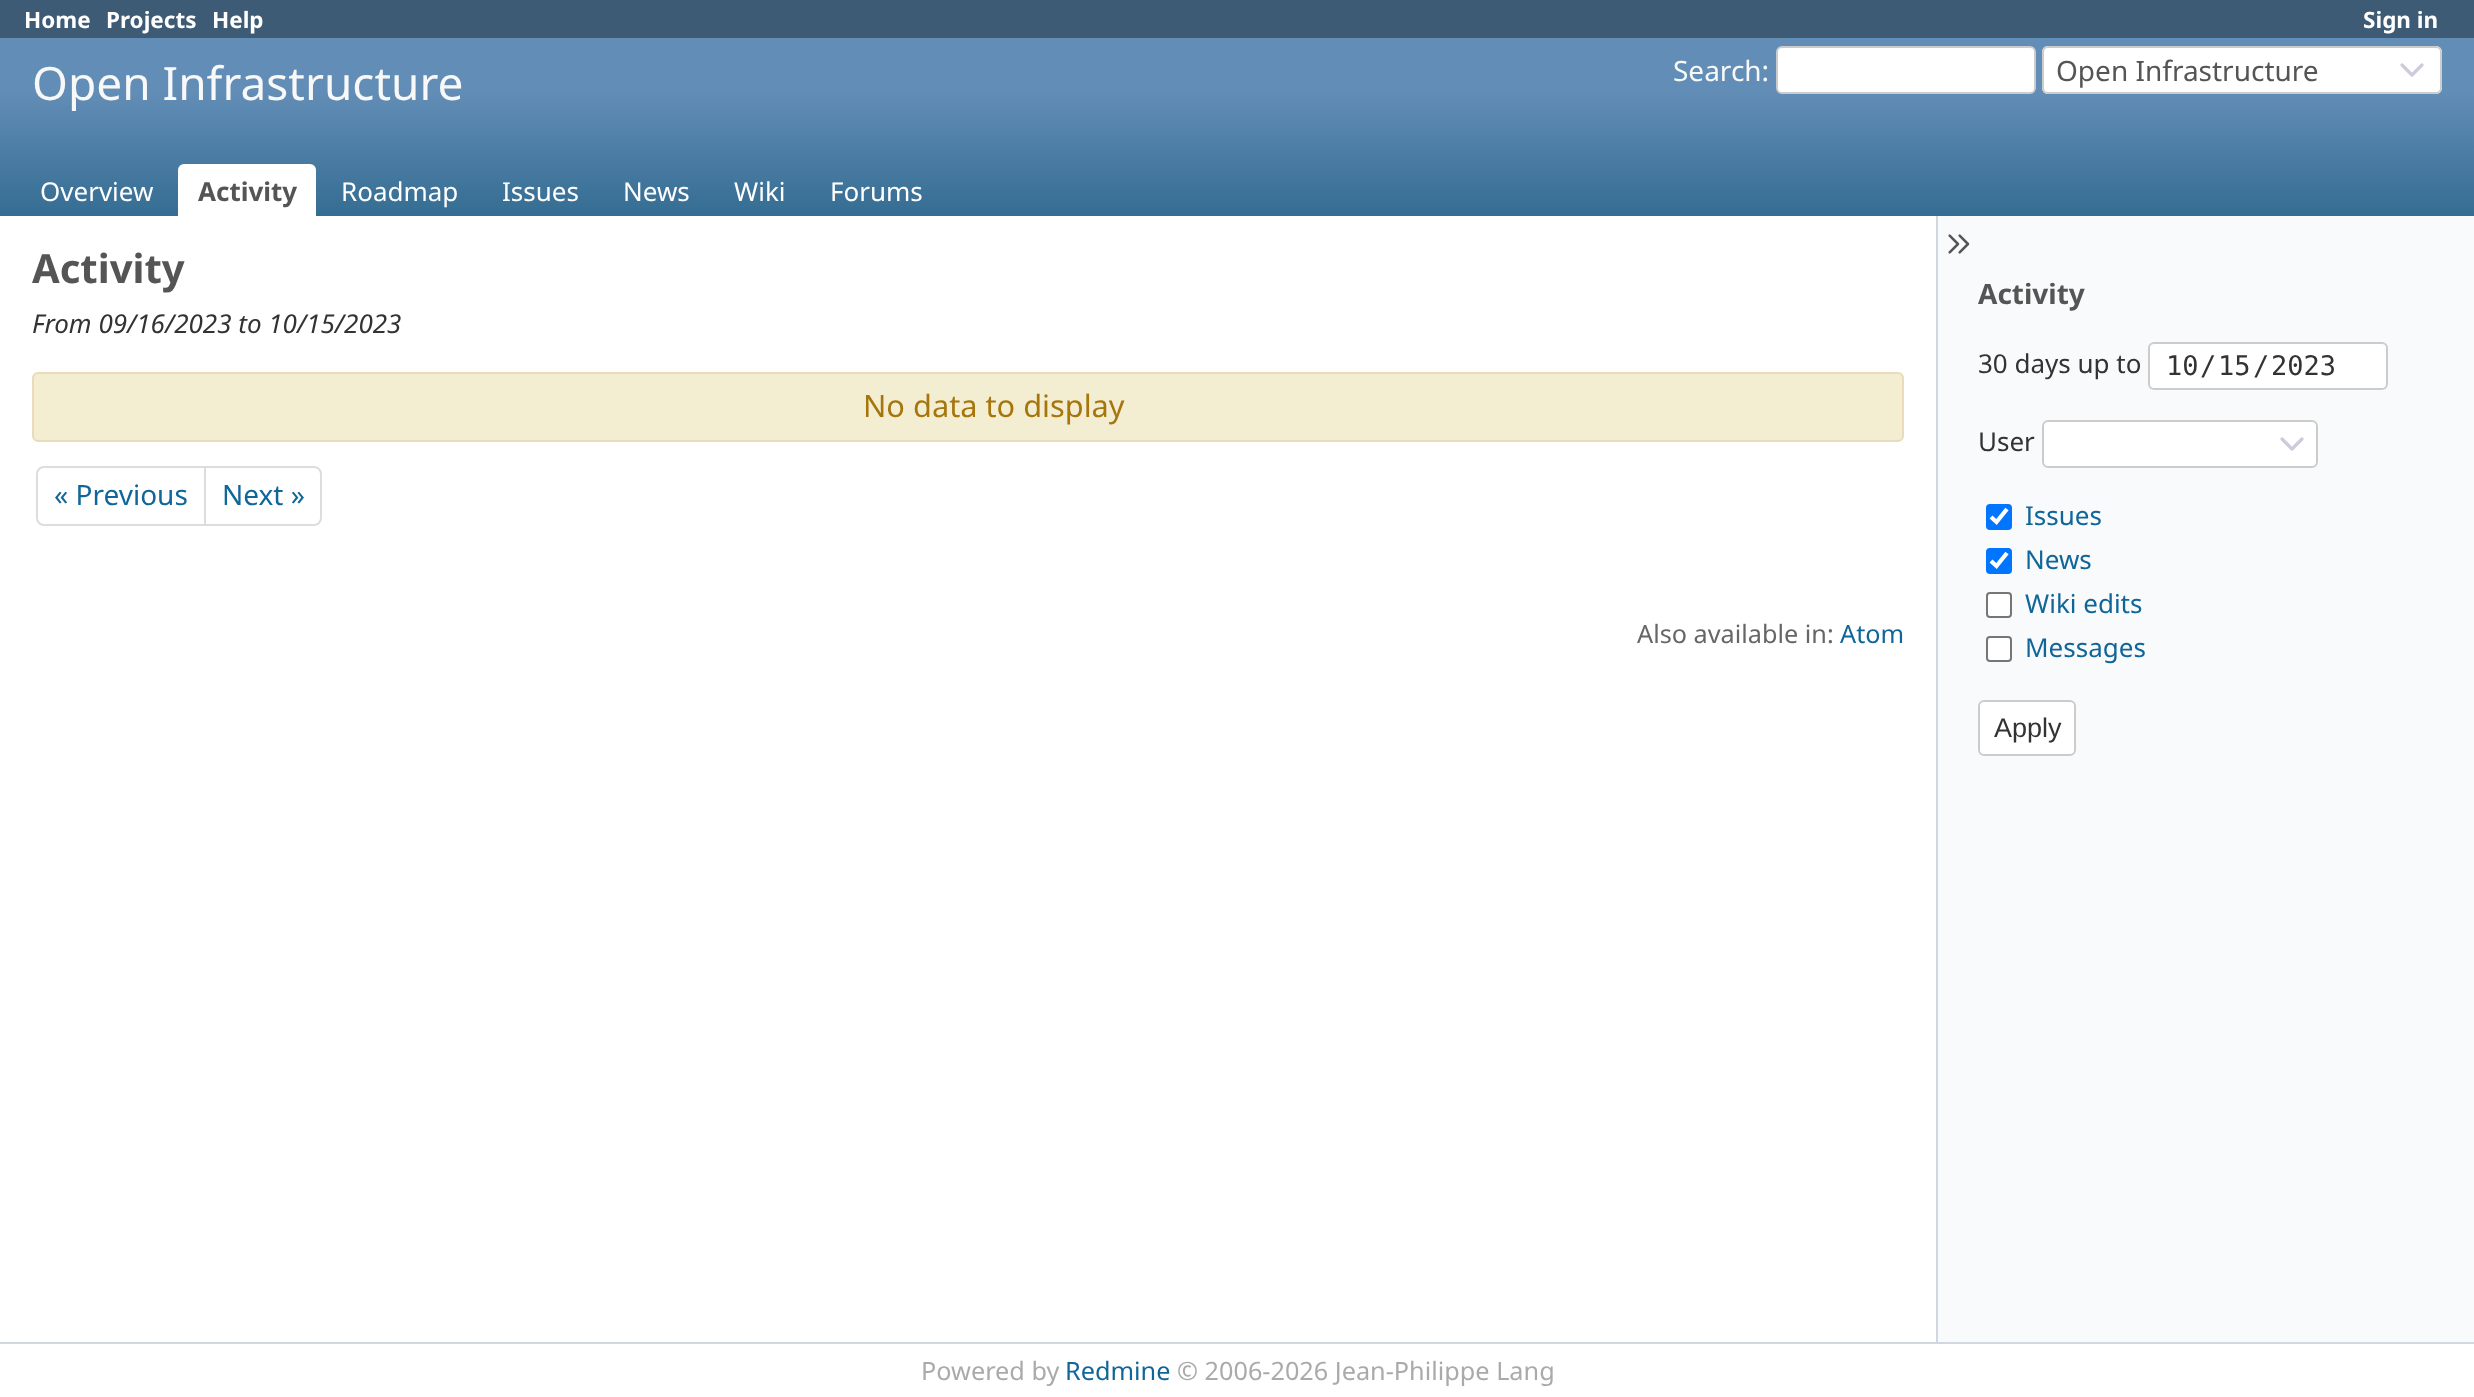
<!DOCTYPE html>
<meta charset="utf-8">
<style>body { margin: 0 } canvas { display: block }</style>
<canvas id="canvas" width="2474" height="1397"></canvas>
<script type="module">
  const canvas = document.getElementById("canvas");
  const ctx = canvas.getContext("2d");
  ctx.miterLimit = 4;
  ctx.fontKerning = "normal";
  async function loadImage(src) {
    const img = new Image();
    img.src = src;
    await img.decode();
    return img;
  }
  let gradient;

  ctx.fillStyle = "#ffffff";
  ctx.fillRect(0, 0, 2474, 1397);
  ctx.fillStyle = "#3e5b76";
  ctx.fillRect(0, 0, 2474, 38);
  ctx.font = "bold 22.5px Noto Sans";
  ctx.fillStyle = "#ffffff";
  ctx.fillText("Home", 24, 28);
  ctx.fillText("Projects", 106, 28);
  ctx.fillText("Help", 212, 28);
  ctx.fillText("Sign in", 2363, 28);
  gradient = ctx.createLinearGradient(1237, 38, 1237, 216);
  gradient.addColorStop(0.3, "#628db6");
  gradient.addColorStop(1, "#356d92");
  ctx.fillStyle = gradient;
  ctx.fillRect(0, 38, 2474, 178);
  ctx.font = "46px Noto Sans";
  ctx.fillStyle = "#f8f8f8";
  ctx.fillText("Open Infrastructure", 32, 100);
  ctx.font = "28px Noto Sans";
  ctx.fillText("Search:", 1673, 81);
  ctx.fillStyle = "#ffffff";
  ctx.beginPath();
  ctx.roundRect(1777, 47, 258, 46, 5);
  ctx.fill();
  ctx.strokeStyle = "#cccccc";
  ctx.lineWidth = 2;
  ctx.stroke();
  ctx.beginPath();
  ctx.roundRect(2042, 46, 400, 48, 6);
  ctx.fill();
  ctx.beginPath();
  ctx.moveTo(2402, 65);
  ctx.lineTo(2412, 75);
  ctx.lineTo(2422, 65);
  ctx.strokeStyle = "#ccccdd";
  ctx.lineWidth = 3.3;
  ctx.lineCap = "round";
  ctx.lineJoin = "round";
  ctx.stroke();
  ctx.beginPath();
  ctx.roundRect(2043, 47, 398, 46, 5);
  ctx.strokeStyle = "#cccccc";
  ctx.lineWidth = 2;
  ctx.lineJoin = "miter";
  ctx.stroke();
  ctx.fillStyle = "#555555";
  ctx.fillText("Open Infrastructure", 2056, 81);
  ctx.font = "26px Noto Sans";
  ctx.fillStyle = "#ffffff";
  ctx.fillText("Overview", 40, 201);
  ctx.beginPath();
  ctx.roundRect(178, 164, 138, 52, [6, 6, 0, 0]);
  ctx.fill();
  ctx.font = "bold 26px Noto Sans";
  ctx.fillStyle = "#555555";
  ctx.fillText("Activity", 198, 201);
  ctx.font = "26px Noto Sans";
  ctx.fillStyle = "#ffffff";
  ctx.fillText("Roadmap", 341, 201);
  ctx.fillText("Issues", 502, 201);
  ctx.fillText("News", 623, 201);
  ctx.fillText("Wiki", 734, 201);
  ctx.fillText("Forums", 830, 201);
  ctx.font = "bold 40px Noto Sans";
  ctx.fillStyle = "#555555";
  ctx.fillText("Activity", 32, 283);
  ctx.font = "italic 26px Noto Sans";
  ctx.fillStyle = "#333333";
  ctx.fillText("From 09/16/2023 to 10/15/2023", 32, 333);
  ctx.fillStyle = "#f3edd1";
  ctx.beginPath();
  ctx.roundRect(33, 373, 1870, 68, 5);
  ctx.fill();
  ctx.strokeStyle = "#eadbbc";
  ctx.stroke();
  ctx.font = "30.75px Noto Sans";
  ctx.fillStyle = "#a6750c";
  ctx.fillText("No data to display", 863, 417);
  ctx.beginPath();
  ctx.roundRect(37, 467, 168, 58, [7, 0, 0, 7]);
  ctx.strokeStyle = "#dddddd";
  ctx.stroke();
  ctx.font = "28px Noto Sans";
  ctx.fillStyle = "#116699";
  ctx.fillText("« Previous", 54, 505);
  ctx.beginPath();
  ctx.roundRect(205, 467, 116, 58, [0, 7, 7, 0]);
  ctx.stroke();
  ctx.fillText("Next »", 222, 505);
  ctx.font = "25.25px Noto Sans";
  ctx.fillStyle = "#666666";
  ctx.fillText("Also available in:", 1637, 643);
  ctx.fillStyle = "#116699";
  ctx.fillText("Atom", 1840, 643);
  ctx.fillStyle = "#f9fafb";
  ctx.fillRect(1938, 216, 536, 1126);
  ctx.fillStyle = "#d0d7de";
  ctx.fillRect(1936, 216, 2, 1126);
  ctx.drawImage(await loadImage("img1.png"), 1948, 234, 22, 20);
  ctx.font = "bold 28px Noto Sans";
  ctx.fillStyle = "#555555";
  ctx.fillText("Activity", 1978, 304);
  ctx.font = "26px Noto Sans";
  ctx.fillStyle = "#333333";
  ctx.fillText("30 days up to", 1978, 373);
  ctx.fillStyle = "#ffffff";
  ctx.beginPath();
  ctx.roundRect(2149, 343, 238, 46, 5);
  ctx.fill();
  ctx.strokeStyle = "#cccccc";
  ctx.stroke();
  ctx.font = "27px DejaVu Sans Mono";
  ctx.fillStyle = "#333333";
  ctx.fillText("10", 2166, 375);
  ctx.fillText("/", 2200, 375);
  ctx.fillText("15", 2218, 375);
  ctx.fillText("/", 2253, 375);
  ctx.fillText("2023", 2271, 375);
  ctx.font = "26px Noto Sans";
  ctx.fillText("User", 1978, 451);
  ctx.fillStyle = "#ffffff";
  ctx.beginPath();
  ctx.roundRect(2042, 420, 276, 48, 6);
  ctx.fill();
  ctx.beginPath();
  ctx.moveTo(2282, 439);
  ctx.lineTo(2292, 449);
  ctx.lineTo(2302, 439);
  ctx.strokeStyle = "#ccccdd";
  ctx.lineWidth = 3.3;
  ctx.lineJoin = "round";
  ctx.stroke();
  ctx.beginPath();
  ctx.roundRect(2043, 421, 274, 46, 5);
  ctx.strokeStyle = "#cccccc";
  ctx.lineWidth = 2;
  ctx.lineJoin = "miter";
  ctx.stroke();
  ctx.fillStyle = "#0075ff";
  ctx.beginPath();
  ctx.roundRect(1986, 504, 26, 26, 4);
  ctx.fill();
  ctx.beginPath();
  ctx.moveTo(1991, 517);
  ctx.lineTo(1996.5, 522);
  ctx.lineTo(2007, 509);
  ctx.strokeStyle = "#ffffff";
  ctx.lineWidth = 4.2;
  ctx.lineCap = "butt";
  ctx.stroke();
  ctx.fillStyle = "#116699";
  ctx.fillText("Issues", 2025, 525);
  ctx.fillStyle = "#0075ff";
  ctx.beginPath();
  ctx.roundRect(1986, 548, 26, 26, 4);
  ctx.fill();
  ctx.beginPath();
  ctx.moveTo(1991, 561);
  ctx.lineTo(1996.5, 566);
  ctx.lineTo(2007, 553);
  ctx.stroke();
  ctx.fillStyle = "#116699";
  ctx.fillText("News", 2025, 569);
  ctx.fillStyle = "#ffffff";
  ctx.beginPath();
  ctx.roundRect(1987, 593, 24, 24, 3);
  ctx.fill();
  ctx.strokeStyle = "#767676";
  ctx.lineWidth = 2;
  ctx.stroke();
  ctx.fillStyle = "#116699";
  ctx.fillText("Wiki edits", 2025, 613);
  ctx.fillStyle = "#ffffff";
  ctx.beginPath();
  ctx.roundRect(1987, 637, 24, 24, 3);
  ctx.fill();
  ctx.stroke();
  ctx.fillStyle = "#116699";
  ctx.fillText("Messages", 2025, 657);
  ctx.fillStyle = "#ffffff";
  ctx.beginPath();
  ctx.roundRect(1979, 701, 96, 54, 5);
  ctx.fill();
  ctx.strokeStyle = "#cccccc";
  ctx.stroke();
  ctx.font = "27px Liberation Sans";
  ctx.fillStyle = "#333333";
  ctx.fillText("Apply", 1994, 737);
  ctx.fillStyle = "#d0d7de";
  ctx.fillRect(0, 1342, 2474, 2);
  ctx.font = "25.25px Noto Sans";
  ctx.fillStyle = "#aaaaaa";
  ctx.fillText("Powered by", 921, 1380);
  ctx.fillStyle = "#116699";
  ctx.fillText("Redmine", 1065, 1380);
  ctx.fillStyle = "#aaaaaa";
  ctx.fillText("© 2006-2026 Jean-Philippe Lang", 1177, 1380);
</script>
